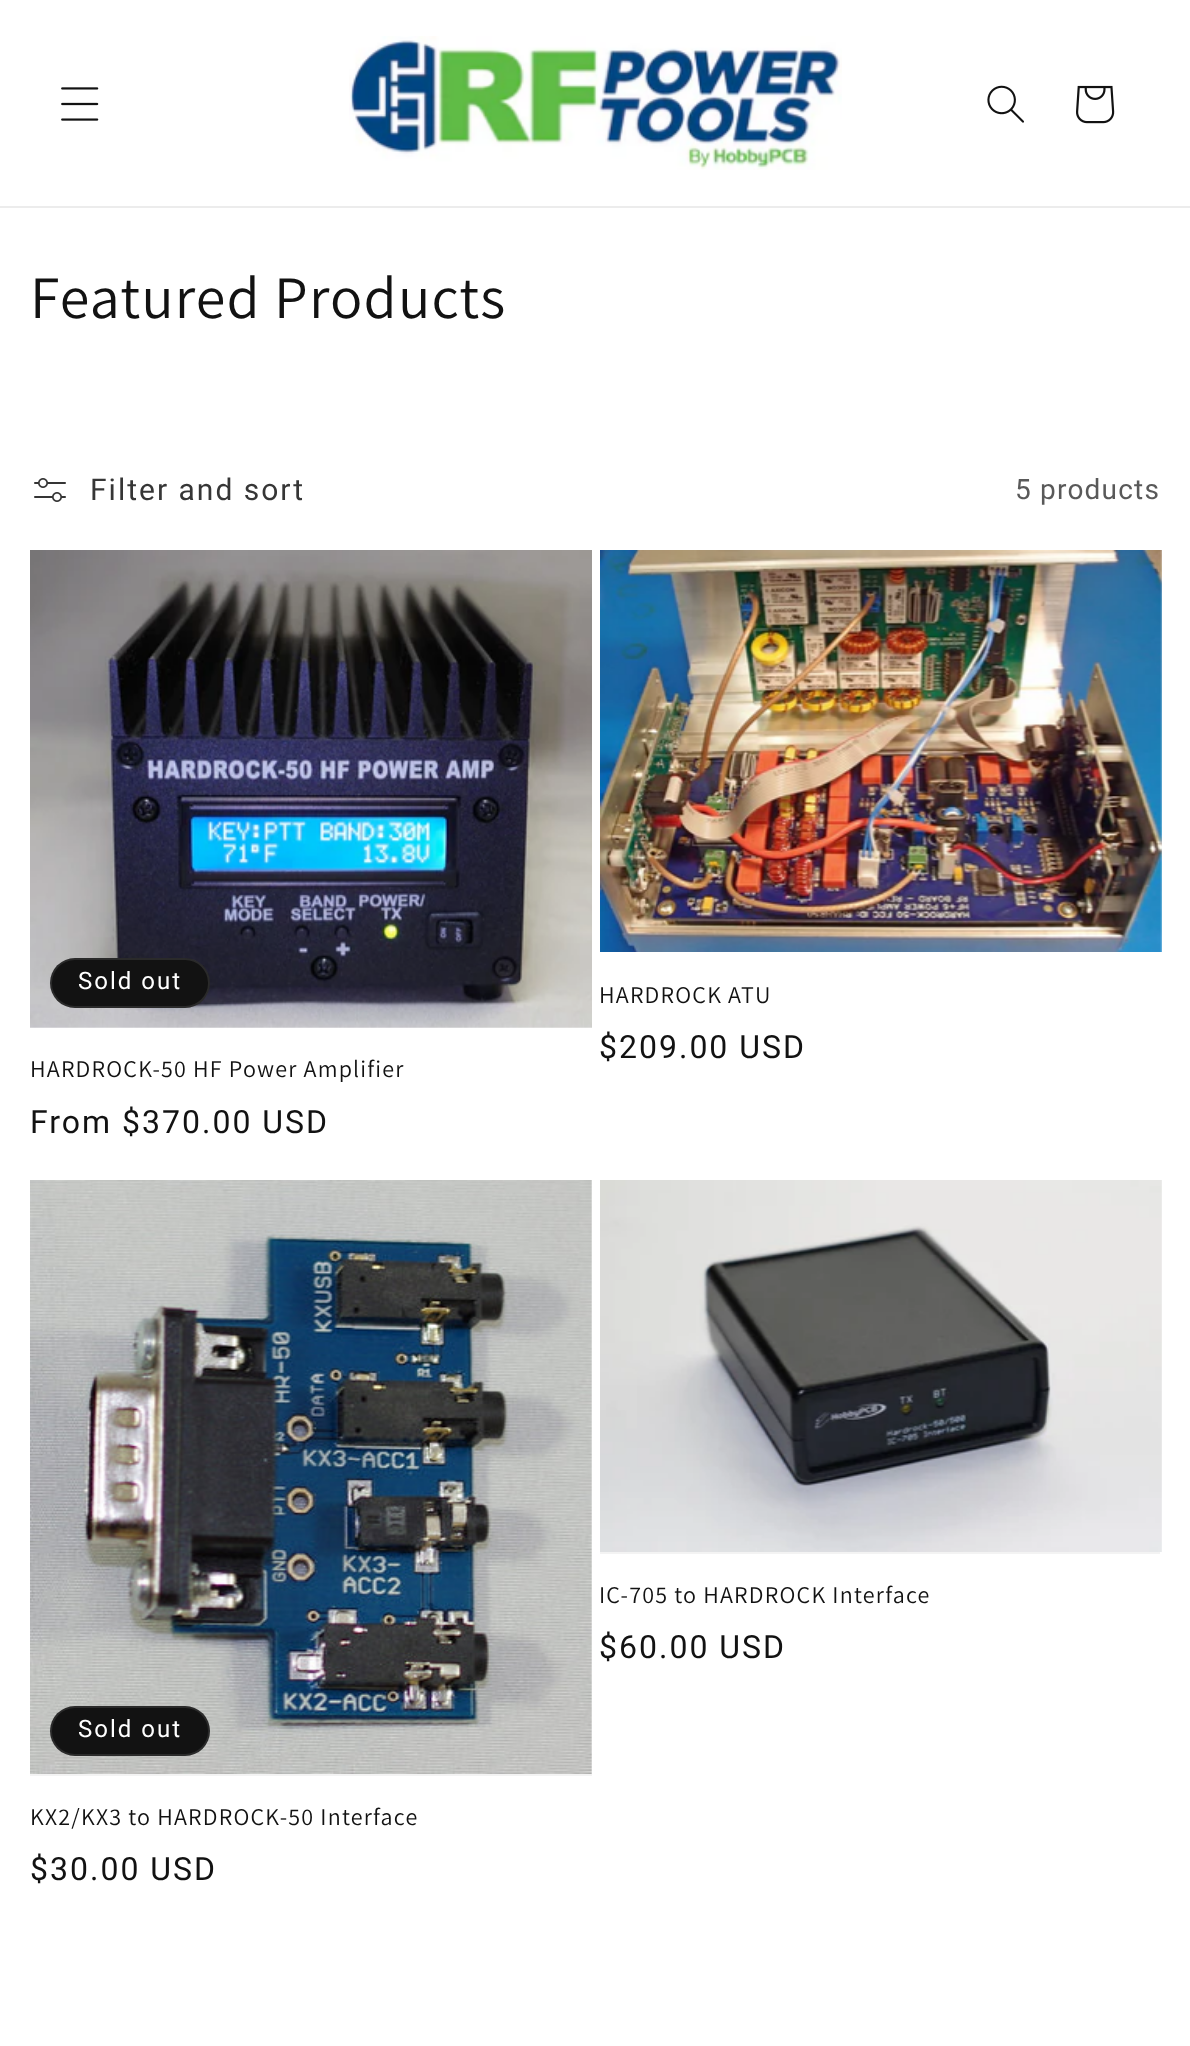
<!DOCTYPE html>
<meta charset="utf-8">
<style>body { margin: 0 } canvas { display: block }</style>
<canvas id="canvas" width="1190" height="2046"></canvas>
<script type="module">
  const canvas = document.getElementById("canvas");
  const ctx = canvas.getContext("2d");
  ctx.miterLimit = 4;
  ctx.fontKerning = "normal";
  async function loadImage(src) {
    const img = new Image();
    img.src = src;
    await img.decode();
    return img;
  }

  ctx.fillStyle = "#ffffff";
  ctx.fillRect(0, 0, 1190, 2046);
  ctx.fillStyle = "#ececec";
  ctx.fillRect(0, 206, 1190, 2);
  ctx.drawImage(await loadImage("img1.png"), 61, 87, 38, 34);
  ctx.drawImage(await loadImage("img2.png"), 349, 36, 493, 134);
  ctx.drawImage(await loadImage("img3.png"), 987, 85, 37, 38);
  ctx.drawImage(await loadImage("img4.png"), 1076, 85, 39, 39);
  ctx.letterSpacing = "1.2px";
  ctx.font = "60px Assistant";
  ctx.fillStyle = "#121212";
  ctx.fillText("Featured Products", 30, 318);
  ctx.drawImage(await loadImage("img5.png"), 34, 478, 32, 24);
  ctx.letterSpacing = "2px";
  ctx.font = "30px Roboto";
  ctx.fillStyle = "#363636";
  ctx.fillText("Filter and sort", 90, 500);
  ctx.letterSpacing = "1.2px";
  ctx.font = "28px Roboto";
  ctx.fillStyle = "#595959";
  ctx.fillText("5 products", 1015, 499);
  ctx.drawImage(await loadImage("img6.png"), 30, 550, 562, 478);
  ctx.fillStyle = "#121212";
  ctx.beginPath();
  ctx.roundRect(50, 958, 160, 50, 25);
  ctx.fill();
  ctx.beginPath();
  ctx.roundRect(51, 959, 158, 48, 24);
  ctx.strokeStyle = "rgba(255, 255, 255, 0.1)";
  ctx.lineWidth = 2;
  ctx.stroke();
  ctx.letterSpacing = "2px";
  ctx.font = "24px Roboto";
  ctx.fillStyle = "#ffffff";
  ctx.fillText("Sold out", 78, 989);
  ctx.letterSpacing = "1.2px";
  ctx.font = "24px Assistant";
  ctx.fillStyle = "#121212";
  ctx.fillText("HARDROCK-50 HF Power Amplifier", 30, 1077);
  ctx.letterSpacing = "2px";
  ctx.font = "32px Roboto";
  ctx.fillText("From $370.00 USD", 30, 1133);
  ctx.drawImage(await loadImage("img7.png"), 600, 550, 562, 402);
  ctx.letterSpacing = "1.2px";
  ctx.font = "24px Assistant";
  ctx.fillText("HARDROCK ATU", 599, 1003);
  ctx.letterSpacing = "2px";
  ctx.font = "32px Roboto";
  ctx.fillText("$209.00 USD", 599, 1058);
  ctx.fillStyle = "#f3f3f3";
  ctx.fillRect(600, 1552, 560, 2);
  ctx.drawImage(await loadImage("img8.png"), 600, 1180, 562, 372);
  ctx.letterSpacing = "1.2px";
  ctx.font = "24px Assistant";
  ctx.fillStyle = "#121212";
  ctx.fillText("IC-705 to HARDROCK Interface", 599, 1603);
  ctx.letterSpacing = "2px";
  ctx.font = "32px Roboto";
  ctx.fillText("$60.00 USD", 599, 1658);
  ctx.fillStyle = "#f3f3f3";
  ctx.fillRect(30, 1180, 562, 596);
  ctx.drawImage(await loadImage("img9.png"), 30, 1180, 562, 594);
  ctx.fillStyle = "#121212";
  ctx.beginPath();
  ctx.roundRect(50, 1706, 160, 50, 25);
  ctx.fill();
  ctx.beginPath();
  ctx.roundRect(51, 1707, 158, 48, 24);
  ctx.stroke();
  ctx.font = "24px Roboto";
  ctx.fillStyle = "#ffffff";
  ctx.fillText("Sold out", 78, 1737);
  ctx.letterSpacing = "1.2px";
  ctx.font = "24px Assistant";
  ctx.fillStyle = "#121212";
  ctx.fillText("KX2/KX3 to HARDROCK-50 Interface", 30, 1825);
  ctx.letterSpacing = "2px";
  ctx.font = "32px Roboto";
  ctx.fillText("$30.00 USD", 30, 1880);
</script>
